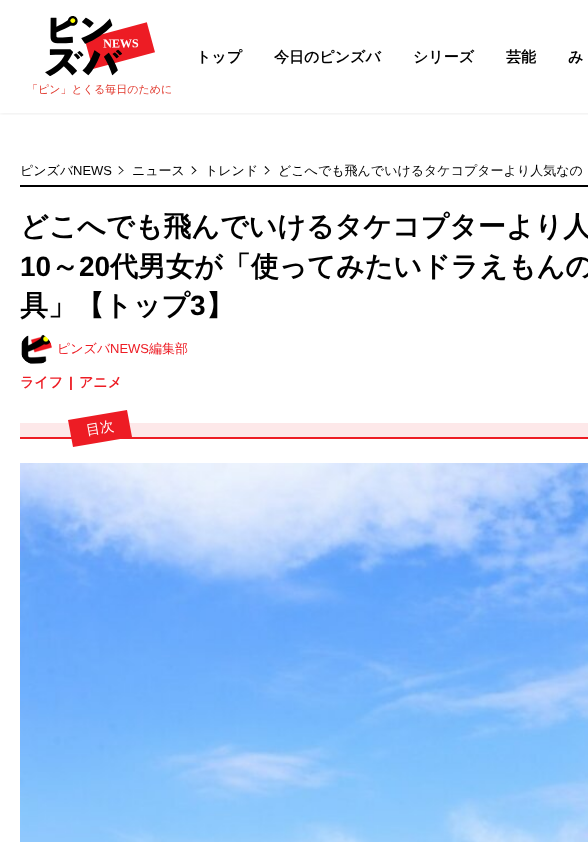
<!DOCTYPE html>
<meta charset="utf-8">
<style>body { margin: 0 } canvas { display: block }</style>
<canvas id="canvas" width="588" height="842"></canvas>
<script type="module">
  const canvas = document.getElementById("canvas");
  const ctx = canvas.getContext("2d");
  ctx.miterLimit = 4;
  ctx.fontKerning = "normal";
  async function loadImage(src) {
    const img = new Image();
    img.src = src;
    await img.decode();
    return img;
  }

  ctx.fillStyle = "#ffffff";
  ctx.fillRect(0, 0, 588, 842);
  ctx.save();
  ctx.beginPath();
  ctx.rect(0, 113, 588, 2);
  ctx.clip();
  ctx.fillStyle = "rgba(0, 0, 0, 0.1)";
  ctx.filter = "blur(2.5px)";
  ctx.beginPath();
  ctx.rect(0, 0, 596, 113);
  ctx.fill();
  ctx.filter = "none";
  ctx.restore();
  ctx.font = "bold 15px WenQuanYi Zen Hei";
  ctx.fillStyle = "#000000";
  ctx.fillText("トップ", 196, 62);
  ctx.fillText("今日のピンズバ", 274, 62);
  ctx.fillText("シリーズ", 413, 62);
  ctx.fillText("芸能", 506, 62);
  ctx.fillText("み", 568, 62);
  ctx.drawImage(await loadImage("img1.png"), 45, 16, 110, 60);
  ctx.font = "500 11px WenQuanYi Zen Hei";
  ctx.fillStyle = "#e13a2f";
  ctx.fillText("「ピン」とくる毎日のために", 27, 93);
  ctx.fillStyle = "#000000";
  ctx.fillRect(20, 185, 568, 2);
  ctx.font = "500 13px WenQuanYi Zen Hei";
  ctx.fillText("ピンズバ", 20, 175);
  ctx.font = "13px Liberation Sans";
  ctx.fillText("NEWS", 73, 175);
  ctx.beginPath();
  ctx.moveTo(119, 166);
  ctx.lineTo(123.5, 170.5);
  ctx.lineTo(123, 171);
  ctx.lineTo(118.5, 167);
  ctx.closePath();
  ctx.fill();
  ctx.beginPath();
  ctx.moveTo(123, 170);
  ctx.lineTo(123.5, 170.5);
  ctx.lineTo(119, 174.5);
  ctx.lineTo(118.5, 174);
  ctx.closePath();
  ctx.fill();
  ctx.font = "500 13px WenQuanYi Zen Hei";
  ctx.fillText("ニュース", 132, 175);
  ctx.beginPath();
  ctx.moveTo(192, 166);
  ctx.lineTo(196.5, 170.5);
  ctx.lineTo(195.5, 171);
  ctx.lineTo(191.5, 167);
  ctx.closePath();
  ctx.fill();
  ctx.beginPath();
  ctx.moveTo(195.5, 170);
  ctx.lineTo(196.5, 170.5);
  ctx.lineTo(192, 174.5);
  ctx.lineTo(191.5, 174);
  ctx.closePath();
  ctx.fill();
  ctx.fillText("トレンド", 205, 175);
  ctx.beginPath();
  ctx.moveTo(265.5, 166);
  ctx.lineTo(269.5, 170.5);
  ctx.lineTo(269, 171);
  ctx.lineTo(264.5, 167);
  ctx.closePath();
  ctx.fill();
  ctx.beginPath();
  ctx.moveTo(269, 170);
  ctx.lineTo(269.5, 170.5);
  ctx.lineTo(265.5, 174.5);
  ctx.lineTo(264.5, 174);
  ctx.closePath();
  ctx.fill();
  ctx.fillText("どこへでも飛んでいけるタケコプターより人気なの", 278, 175);
  ctx.font = "bold 28px WenQuanYi Zen Hei";
  ctx.fillText("どこへでも飛んでいけるタケコプターより人", 20, 236);
  ctx.font = "bold 28px Liberation Sans";
  ctx.fillText("10", 20, 276);
  ctx.font = "bold 28px WenQuanYi Zen Hei";
  ctx.fillText("～", 51, 276);
  ctx.font = "bold 28px Liberation Sans";
  ctx.fillText("20", 79, 276);
  ctx.font = "bold 28px WenQuanYi Zen Hei";
  ctx.fillText("代男女が「使ってみたいドラえもんの", 110, 276);
  ctx.fillText("具」【トップ", 20, 315);
  ctx.font = "bold 28px Liberation Sans";
  ctx.fillText("3", 190, 315);
  ctx.font = "bold 28px WenQuanYi Zen Hei";
  ctx.fillText("】", 206, 315);
  ctx.drawImage(await loadImage("img2.png"), 21, 334, 31, 30);
  ctx.font = "500 13px WenQuanYi Zen Hei";
  ctx.fillStyle = "#ed1c24";
  ctx.fillText("ピンズバ", 57, 353);
  ctx.font = "13px Liberation Sans";
  ctx.fillText("NEWS", 110, 353);
  ctx.font = "500 13px WenQuanYi Zen Hei";
  ctx.fillText("編集部", 149, 353);
  ctx.font = "bold 14px WenQuanYi Zen Hei";
  ctx.fillText("ライフ", 20, 387);
  ctx.font = "bold 14px Liberation Sans";
  ctx.fillText("|", 69, 387);
  ctx.font = "bold 14px WenQuanYi Zen Hei";
  ctx.fillText("アニメ", 79, 387);
  ctx.fillStyle = "#fde8e9";
  ctx.fillRect(20, 423, 568, 14);
  ctx.fillStyle = "#ed1c24";
  ctx.fillRect(20, 437, 568, 2);
  ctx.beginPath();
  ctx.moveTo(68, 420);
  ctx.lineTo(127, 410);
  ctx.lineTo(132, 437);
  ctx.lineTo(73, 447);
  ctx.closePath();
  ctx.fill();
  ctx.font = "500 14px WenQuanYi Zen Hei";
  ctx.fillStyle = "#ffffff";
  ctx.save();
  ctx.translate(87, 435);
  ctx.rotate(-9.8 * Math.PI / 180);
  ctx.fillText("目次", 0, 0);
  ctx.restore();
  ctx.drawImage(await loadImage("img3.png"), 20, 463, 568, 379);
</script>
